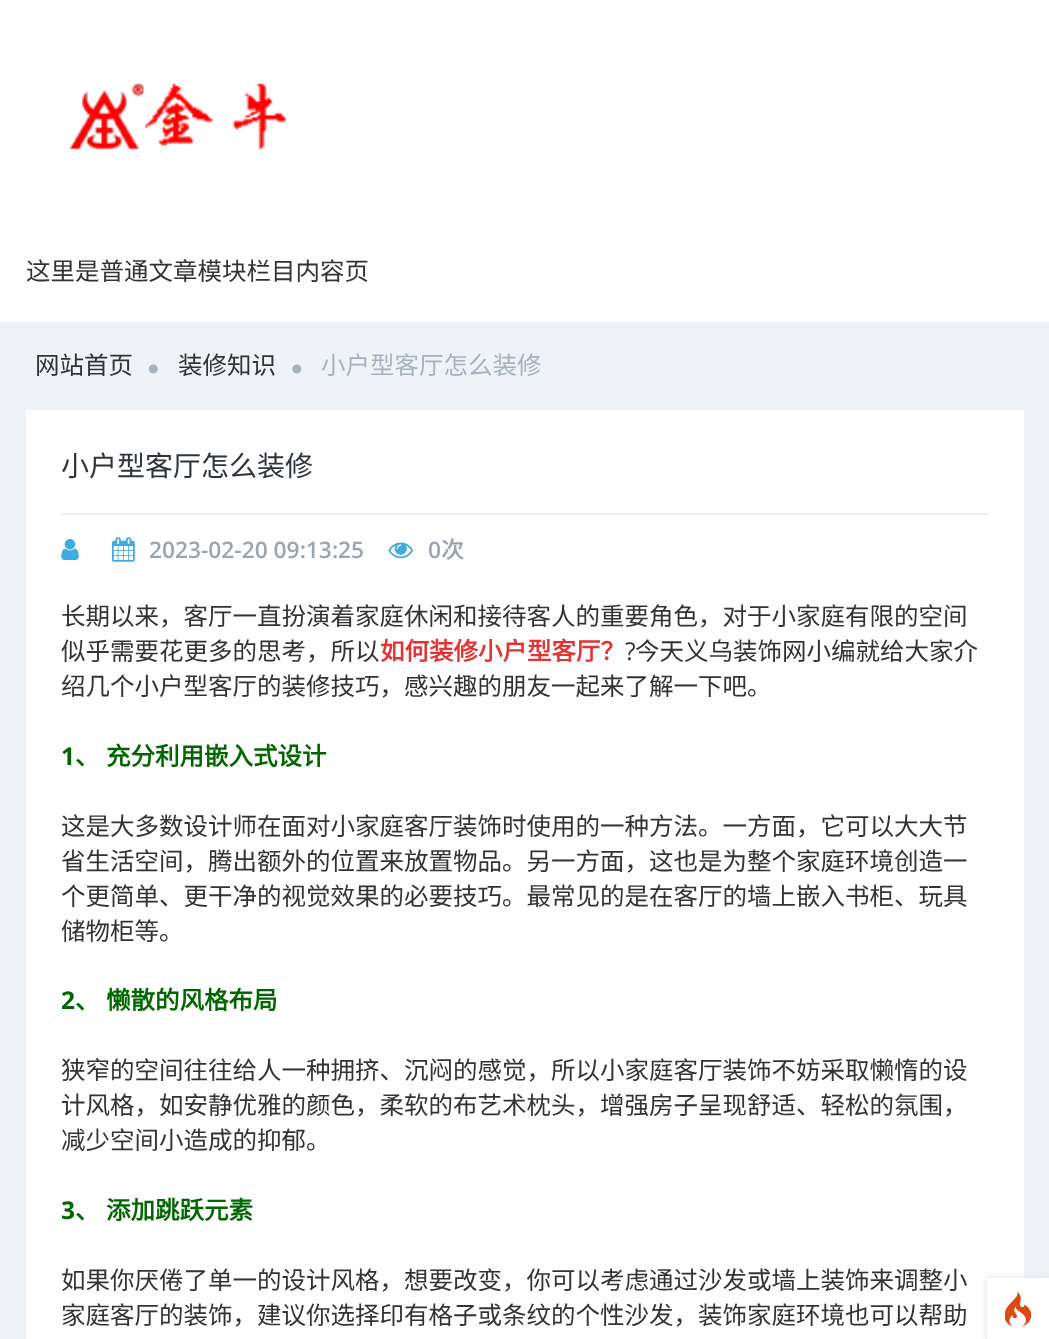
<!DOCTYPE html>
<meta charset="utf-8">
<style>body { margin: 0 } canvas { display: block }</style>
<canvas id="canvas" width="1049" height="1339"></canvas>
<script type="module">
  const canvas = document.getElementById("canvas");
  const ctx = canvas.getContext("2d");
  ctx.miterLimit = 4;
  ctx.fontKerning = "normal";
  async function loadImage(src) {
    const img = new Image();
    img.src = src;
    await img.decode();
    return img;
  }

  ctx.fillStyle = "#ffffff";
  ctx.fillRect(0, 0, 1049, 1339);
  ctx.drawImage(await loadImage("img1.png"), 69, 83, 217, 67);
  ctx.fillStyle = "#eff3f8";
  ctx.fillRect(0, 322, 1049, 1017);
  ctx.font = "24.5px Noto Sans CJK SC";
  ctx.fillStyle = "#333333";
  ctx.fillText("这里是普通文章模块栏目内容页", 26, 280);
  ctx.fillText("网站首页", 35, 374);
  ctx.drawImage(await loadImage("img2.png"), 148, 364, 10, 10);
  ctx.fillText("装修知识", 178, 374);
  ctx.drawImage(await loadImage("img3.png"), 292, 364, 10, 10);
  ctx.fillStyle = "#a7b2c0";
  ctx.fillText("小户型客厅怎么装修", 321, 374);
  ctx.fillStyle = "#ffffff";
  ctx.fillRect(26, 410, 998, 929);
  ctx.fillStyle = "#eeeeee";
  ctx.fillRect(61, 513, 928, 2);
  ctx.font = "28px Noto Sans CJK SC";
  ctx.fillStyle = "#2f353b";
  ctx.fillText("小户型客厅怎么装修", 61, 476);
  ctx.drawImage(await loadImage("img4.png"), 61, 539, 18, 21);
  ctx.drawImage(await loadImage("img5.png"), 112, 537, 23, 25);
  ctx.font = "600 22.75px Open Sans";
  ctx.fillStyle = "#9aa5b2";
  ctx.fillText("2023-02-20 09:13:25", 149, 558);
  ctx.drawImage(await loadImage("img6.png"), 388, 542, 25, 17);
  ctx.fillText("0", 428, 558);
  ctx.font = "bold 22.75px Noto Sans CJK SC";
  ctx.fillText("次", 441, 558);
  ctx.font = "24.5px Noto Sans CJK SC";
  ctx.fillStyle = "#333333";
  ctx.fillText("长期以来，客厅一直扮演着家庭休闲和接待客人的重要角色，对于小家庭有限的空间", 61, 625);
  ctx.fillText("似乎需要花更多的思考，所以", 61, 660);
  ctx.font = "bold 24.5px Noto Sans CJK SC";
  ctx.fillStyle = "#e53333";
  ctx.fillText("如何装修小户型客厅？", 380, 660);
  ctx.font = "24.5px Open Sans";
  ctx.fillStyle = "#333333";
  ctx.fillText("?", 625, 660);
  ctx.font = "24.5px Noto Sans CJK SC";
  ctx.fillText("今天义乌装饰网小编就给大家介", 635, 660);
  ctx.fillText("绍几个小户型客厅的装修技巧，感兴趣的朋友一起来了解一下吧。", 61, 695);
  ctx.font = "bold 24.5px Open Sans";
  ctx.fillStyle = "#006600";
  ctx.fillText("1", 61, 765);
  ctx.wordSpacing = "1px";
  ctx.font = "bold 24.5px Noto Sans CJK SC";
  ctx.fillText("、 充分利用嵌入式设计", 75, 765);
  ctx.wordSpacing = "0px";
  ctx.font = "24.5px Noto Sans CJK SC";
  ctx.fillStyle = "#333333";
  ctx.fillText("这是大多数设计师在面对小家庭客厅装饰时使用的一种方法。一方面，它可以大大节", 61, 835);
  ctx.fillText("省生活空间，腾出额外的位置来放置物品。另一方面，这也是为整个家庭环境创造一", 61, 870);
  ctx.fillText("个更简单、更干净的视觉效果的必要技巧。最常见的是在客厅的墙上嵌入书柜、玩具", 61, 905);
  ctx.fillText("储物柜等。", 61, 940);
  ctx.font = "bold 24.5px Open Sans";
  ctx.fillStyle = "#006600";
  ctx.fillText("2", 61, 1009);
  ctx.wordSpacing = "1px";
  ctx.font = "bold 24.5px Noto Sans CJK SC";
  ctx.fillText("、 懒散的风格布局", 75, 1009);
  ctx.wordSpacing = "0px";
  ctx.font = "24.5px Noto Sans CJK SC";
  ctx.fillStyle = "#333333";
  ctx.fillText("狭窄的空间往往给人一种拥挤、沉闷的感觉，所以小家庭客厅装饰不妨采取懒惰的设", 61, 1079);
  ctx.fillText("计风格，如安静优雅的颜色，柔软的布艺术枕头，增强房子呈现舒适、轻松的氛围，", 61, 1114);
  ctx.fillText("减少空间小造成的抑郁。", 61, 1149);
  ctx.font = "bold 24.5px Open Sans";
  ctx.fillStyle = "#006600";
  ctx.fillText("3", 61, 1219);
  ctx.wordSpacing = "1px";
  ctx.font = "bold 24.5px Noto Sans CJK SC";
  ctx.fillText("、 添加跳跃元素", 75, 1219);
  ctx.wordSpacing = "0px";
  ctx.font = "24.5px Noto Sans CJK SC";
  ctx.fillStyle = "#333333";
  ctx.fillText("如果你厌倦了单一的设计风格，想要改变，你可以考虑通过沙发或墙上装饰来调整小", 61, 1289);
  ctx.fillText("家庭客厅的装饰，建议你选择印有格子或条纹的个性沙发，装饰家庭环境也可以帮助", 61, 1324);
  ctx.fillStyle = "#dfdfdf";
  ctx.filter = "blur(3.5px)";
  ctx.beginPath();
  ctx.rect(987, 1278, 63, 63);
  ctx.fill();
  ctx.filter = "none";
  ctx.fillStyle = "#ffffff";
  ctx.fillRect(987, 1278, 62, 61);
  ctx.drawImage(await loadImage("img7.png"), 1005, 1292, 27, 35);
</script>
